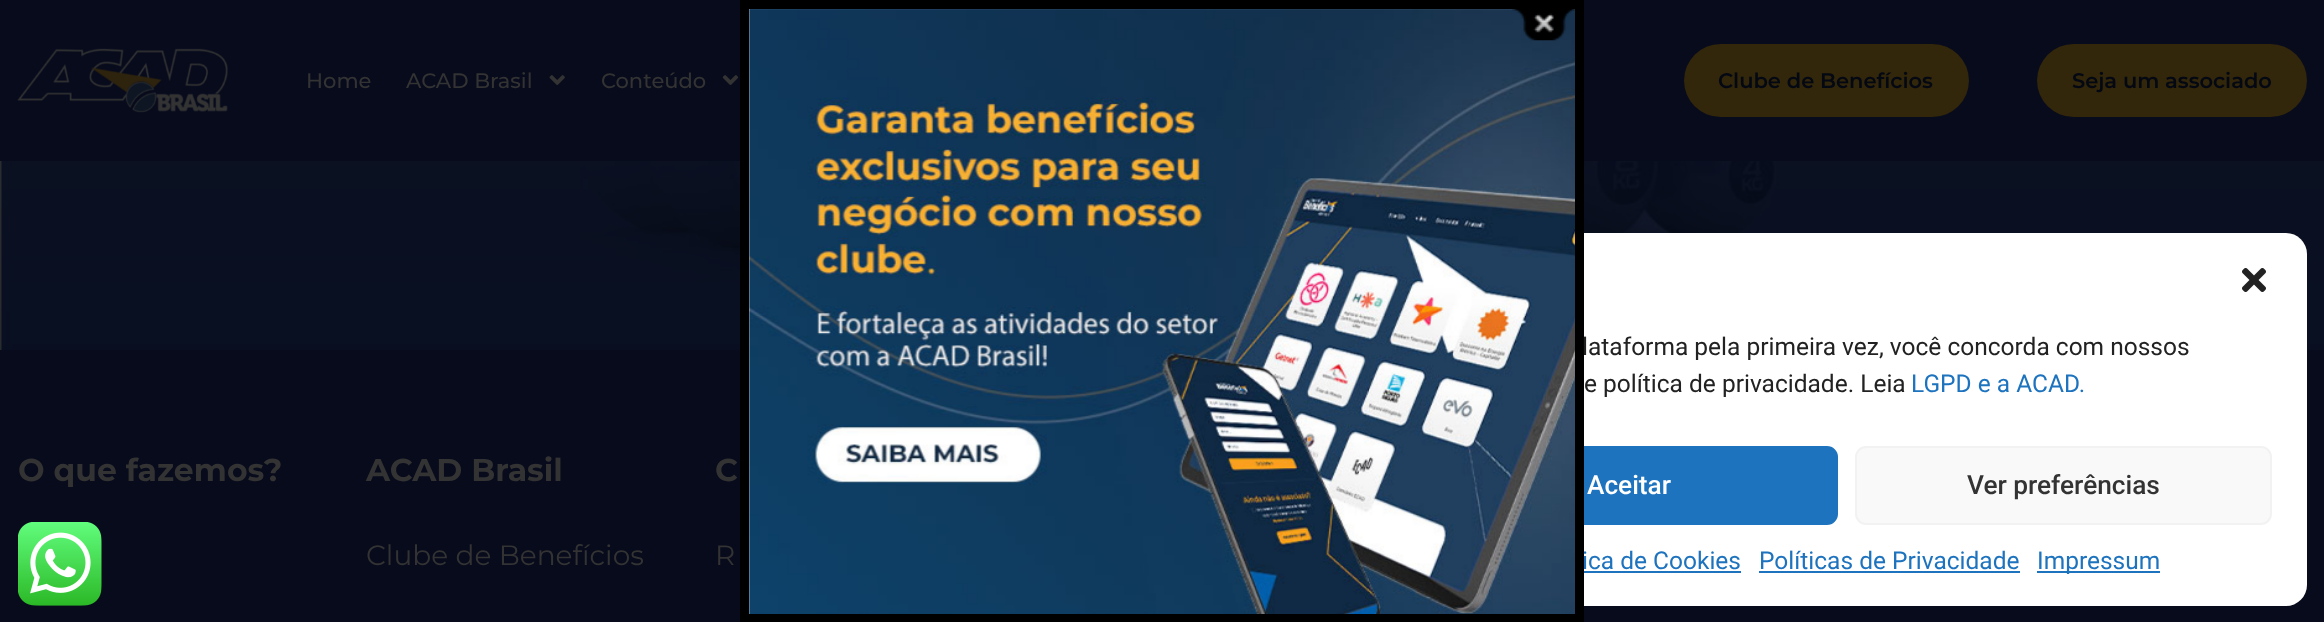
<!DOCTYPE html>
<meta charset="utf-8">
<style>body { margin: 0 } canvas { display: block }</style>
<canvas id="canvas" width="2324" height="622"></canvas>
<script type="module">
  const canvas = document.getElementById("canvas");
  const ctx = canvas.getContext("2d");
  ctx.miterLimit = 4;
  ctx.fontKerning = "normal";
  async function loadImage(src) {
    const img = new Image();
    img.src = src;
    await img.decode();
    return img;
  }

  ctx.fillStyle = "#ffffff";
  ctx.fillRect(0, 0, 2324, 622);
  ctx.fillStyle = "#070b1c";
  ctx.fillRect(0, 0, 2324, 161);
  ctx.drawImage(await loadImage("img6.png"), 0, 161, 2324, 189);
  ctx.fillRect(0, 350, 2324, 272);
  ctx.fillStyle = "#ffffff";
  ctx.beginPath();
  ctx.roundRect(1386, 233, 921, 373, 21);
  ctx.fill();
  ctx.fillStyle = "#1e73be";
  ctx.beginPath();
  ctx.roundRect(1422, 447, 415, 77, 10);
  ctx.fill();
  ctx.strokeStyle = "#1e73be";
  ctx.lineWidth = 2;
  ctx.stroke();
  ctx.fillStyle = "#ffffff";
  ctx.fillRect(749, 9, 826, 605);
  ctx.drawImage(await loadImage("img1.png"), 749, 9, 826, 605);
  ctx.font = "24.5px Roboto";
  ctx.fillStyle = "#1e73be";
  ctx.fillText("ica de Cookies", 1582, 569);
  ctx.strokeStyle = "#000000";
  ctx.lineWidth = 9;
  ctx.strokeRect(744.5, 4.5, 835, 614);
  ctx.drawImage(await loadImage("img2.png"), 1512, 9, 63, 32);
  ctx.drawImage(await loadImage("img3.png"), 17, 48, 211, 65);
  ctx.font = "500 21px Montserrat";
  ctx.fillStyle = "#333333";
  ctx.fillText("Home", 306, 88);
  ctx.fillText("ACAD Brasil", 406, 88);
  ctx.drawImage(await loadImage("img4.png"), 549, 75, 16, 10);
  ctx.fillText("Conteúdo", 601, 88);
  ctx.drawImage(await loadImage("img5.png"), 722, 75, 17, 10);
  ctx.fillStyle = "#32260b";
  ctx.beginPath();
  ctx.roundRect(1684, 44, 285, 73, 36.5);
  ctx.fill();
  ctx.font = "600 21px Montserrat";
  ctx.fillStyle = "#040813";
  ctx.fillText("Clube de Benefícios", 1718, 88);
  ctx.fillStyle = "#32260b";
  ctx.beginPath();
  ctx.roundRect(2037, 44, 270, 73, 36.5);
  ctx.fill();
  ctx.fillStyle = "#040813";
  ctx.fillText("Seja um associado", 2072, 88);
  ctx.font = "bold 31.5px Montserrat";
  ctx.fillStyle = "#333333";
  ctx.fillText("O que fazemos?", 18, 481);
  ctx.fillText("ACAD Brasil", 366, 481);
  ctx.font = "28px Montserrat";
  ctx.fillText("Clube de Benefícios", 366, 565);
  ctx.font = "bold 31.5px Montserrat";
  ctx.fillText("C", 715, 481);
  ctx.font = "28px Montserrat";
  ctx.fillText("R", 715, 565);
  ctx.drawImage(await loadImage("img7.png"), 2242, 268, 24, 24);
  ctx.font = "24.5px Roboto";
  ctx.fillStyle = "#222222";
  ctx.fillText("lataforma pela primeira vez, você concorda com nossos", 1582, 355);
  ctx.fillText("e política de privacidade. Leia", 1584, 392);
  ctx.fillStyle = "#1e73be";
  ctx.fillText("LGPD e a ACAD.", 1911, 392);
  ctx.font = "500 26.25px Roboto";
  ctx.fillStyle = "#ffffff";
  ctx.fillText("Aceitar", 1587, 494);
  ctx.fillStyle = "#f9f9f9";
  ctx.beginPath();
  ctx.roundRect(1856, 447, 415, 77, 10);
  ctx.fill();
  ctx.strokeStyle = "#f2f2f2";
  ctx.lineWidth = 2;
  ctx.stroke();
  ctx.fillStyle = "#333333";
  ctx.fillText("Ver preferências", 1967, 494);
  ctx.fillStyle = "#1e73be";
  ctx.fillRect(1584, 571, 157, 2);
  ctx.font = "24.5px Roboto";
  ctx.fillText("Políticas de Privacidade", 1759, 569);
  ctx.fillRect(1759, 571, 261, 2);
  ctx.fillRect(2037, 571, 123, 2);
  ctx.fillText("Impressum", 2037, 569);
  ctx.drawImage(await loadImage("img8.png"), 18, 522, 84, 84);
</script>
